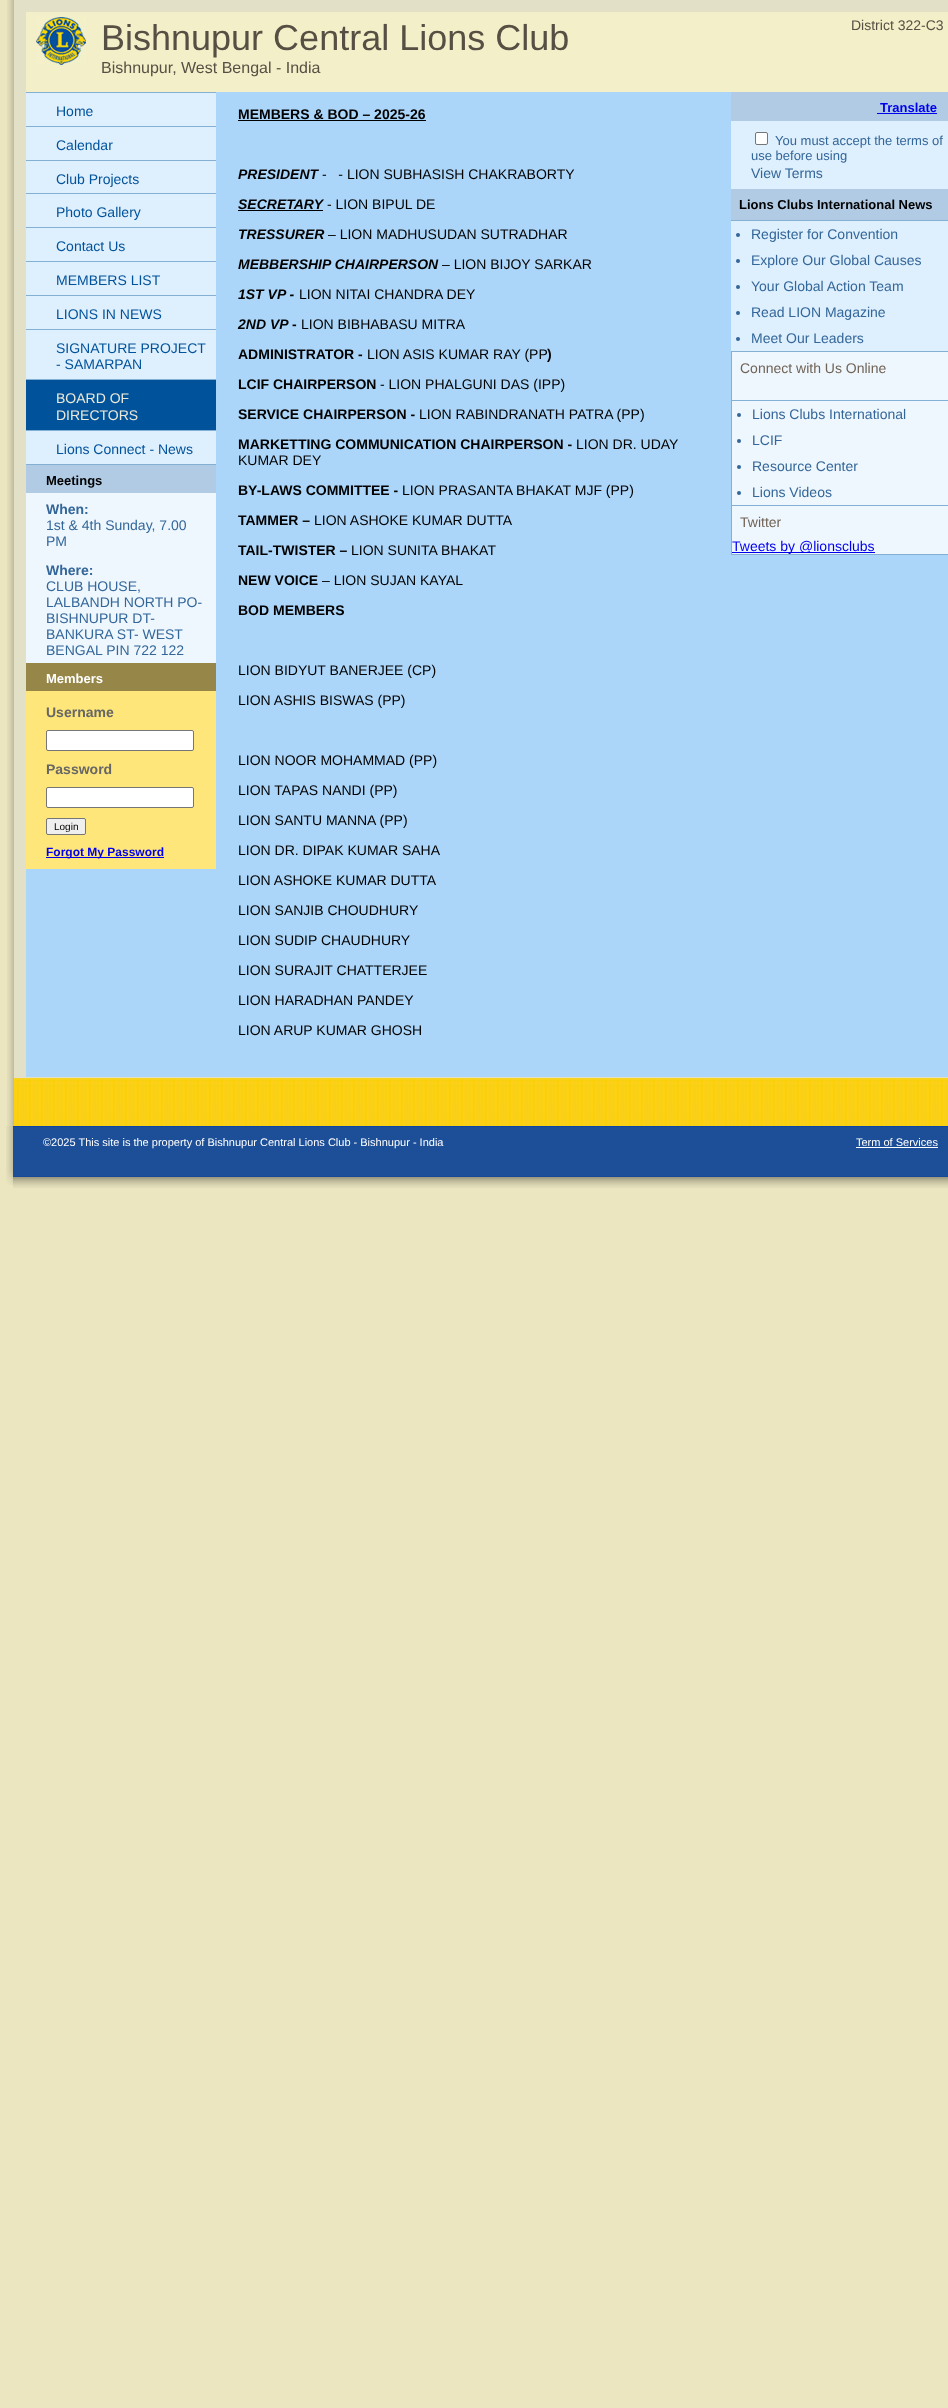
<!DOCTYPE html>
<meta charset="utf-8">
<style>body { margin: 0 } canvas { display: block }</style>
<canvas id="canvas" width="948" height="2408"></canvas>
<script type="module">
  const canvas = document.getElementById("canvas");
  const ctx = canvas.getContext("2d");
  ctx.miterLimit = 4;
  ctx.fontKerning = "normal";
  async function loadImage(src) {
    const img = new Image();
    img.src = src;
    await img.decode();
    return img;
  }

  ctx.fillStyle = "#ebe6c0";
  ctx.fillRect(0, 0, 948, 2408);
  ctx.drawImage(await loadImage("img1.png"), 7, 0, 7, 1126);
  ctx.fillStyle = "#e2e0c6";
  ctx.fillRect(14, 0, 934, 1078);
  ctx.drawImage(await loadImage("img2.png"), 14, 1078, 934, 48);
  ctx.fillStyle = "#f3f0c9";
  ctx.fillRect(26, 12, 922, 80);
  ctx.drawImage(await loadImage("img3.png"), 36, 17, 50, 48);
  ctx.font = "36px Liberation Sans";
  ctx.fillStyle = "#584f44";
  ctx.fillText("Bishnupur Central Lions Club", 101, 50);
  ctx.font = "16px Liberation Sans";
  ctx.fillText("Bishnupur, West Bengal - India", 101, 73);
  ctx.font = "14px Liberation Sans";
  ctx.fillText("District 322-C3", 851, 30);
  ctx.fillStyle = "#abd6f9";
  ctx.fillRect(26, 92, 922, 985);
  ctx.fillStyle = "#85b0d6";
  ctx.fillRect(26, 92, 190, 1);
  ctx.fillRect(26, 126, 190, 1);
  ctx.fillStyle = "#deeffd";
  ctx.fillRect(26, 93, 190, 33);
  ctx.fillStyle = "#00529b";
  ctx.fillText("Home", 56, 116);
  ctx.fillStyle = "#85b0d6";
  ctx.fillRect(26, 160, 190, 1);
  ctx.fillStyle = "#deeffd";
  ctx.fillRect(26, 127, 190, 33);
  ctx.fillStyle = "#00529b";
  ctx.fillText("Calendar", 56, 150);
  ctx.fillStyle = "#85b0d6";
  ctx.fillRect(26, 193, 190, 1);
  ctx.fillStyle = "#deeffd";
  ctx.fillRect(26, 161, 190, 32);
  ctx.fillStyle = "#00529b";
  ctx.fillText("Club Projects", 56, 184);
  ctx.fillStyle = "#85b0d6";
  ctx.fillRect(26, 227, 190, 1);
  ctx.fillStyle = "#deeffd";
  ctx.fillRect(26, 194, 190, 33);
  ctx.fillStyle = "#00529b";
  ctx.fillText("Photo Gallery", 56, 217);
  ctx.fillStyle = "#85b0d6";
  ctx.fillRect(26, 261, 190, 1);
  ctx.fillStyle = "#deeffd";
  ctx.fillRect(26, 228, 190, 33);
  ctx.fillStyle = "#00529b";
  ctx.fillText("Contact Us", 56, 251);
  ctx.fillStyle = "#85b0d6";
  ctx.fillRect(26, 295, 190, 1);
  ctx.fillStyle = "#deeffd";
  ctx.fillRect(26, 262, 190, 33);
  ctx.fillStyle = "#00529b";
  ctx.fillText("MEMBERS LIST", 56, 285);
  ctx.fillStyle = "#85b0d6";
  ctx.fillRect(26, 329, 190, 1);
  ctx.fillStyle = "#deeffd";
  ctx.fillRect(26, 296, 190, 33);
  ctx.fillStyle = "#00529b";
  ctx.fillText("LIONS IN NEWS", 56, 319);
  ctx.fillStyle = "#85b0d6";
  ctx.fillRect(26, 379, 190, 1);
  ctx.fillStyle = "#deeffd";
  ctx.fillRect(26, 330, 190, 49);
  ctx.fillStyle = "#00529b";
  ctx.fillText("SIGNATURE PROJECT", 56, 353);
  ctx.fillText("- SAMARPAN", 56, 369);
  ctx.fillStyle = "#85b0d6";
  ctx.fillRect(26, 430, 190, 1);
  ctx.fillStyle = "#00529b";
  ctx.fillRect(26, 380, 190, 50);
  ctx.fillStyle = "#edeada";
  ctx.fillText("BOARD OF", 56, 403);
  ctx.fillText("DIRECTORS", 56, 420);
  ctx.fillStyle = "#85b0d6";
  ctx.fillRect(26, 464, 190, 1);
  ctx.fillStyle = "#deeffd";
  ctx.fillRect(26, 431, 190, 33);
  ctx.fillStyle = "#00529b";
  ctx.fillText("Lions Connect - News", 56, 454);
  ctx.fillStyle = "#eff7fe";
  ctx.fillRect(26, 493, 190, 170);
  ctx.fillStyle = "#b0cbe3";
  ctx.fillRect(26, 465, 190, 28);
  ctx.font = "bold 13px Liberation Sans";
  ctx.fillStyle = "#000000";
  ctx.fillText("Meetings", 46, 485);
  ctx.font = "bold 14px Liberation Sans";
  ctx.fillStyle = "#336699";
  ctx.fillText("When:", 46, 514);
  ctx.font = "14px Liberation Sans";
  ctx.fillText("1st & 4th Sunday, 7.00", 46, 530);
  ctx.fillText("PM", 46, 546);
  ctx.font = "bold 14px Liberation Sans";
  ctx.fillText("Where:", 46, 575);
  ctx.font = "14px Liberation Sans";
  ctx.fillText("CLUB HOUSE,", 46, 591);
  ctx.fillText("LALBANDH NORTH PO-", 46, 607);
  ctx.fillText("BISHNUPUR DT-", 46, 623);
  ctx.fillText("BANKURA ST- WEST", 46, 639);
  ctx.fillText("BENGAL PIN 722 122", 46, 655);
  ctx.fillStyle = "#fee67a";
  ctx.fillRect(26, 691, 190, 178);
  ctx.fillStyle = "#968648";
  ctx.fillRect(26, 663, 190, 28);
  ctx.font = "bold 13px Liberation Sans";
  ctx.fillStyle = "#ffffff";
  ctx.fillText("Members", 46, 683);
  ctx.font = "bold 14px Liberation Sans";
  ctx.fillStyle = "#666666";
  ctx.fillText("Username", 46, 717);
  ctx.fillStyle = "#ffffff";
  ctx.beginPath();
  ctx.roundRect(46.5, 730.5, 147, 20, 1.5);
  ctx.fill();
  ctx.strokeStyle = "#767676";
  ctx.stroke();
  ctx.fillStyle = "#666666";
  ctx.fillText("Password", 46, 774);
  ctx.fillStyle = "#ffffff";
  ctx.beginPath();
  ctx.roundRect(46.5, 787.5, 147, 20, 1.5);
  ctx.fill();
  ctx.stroke();
  ctx.fillStyle = "#efefef";
  ctx.beginPath();
  ctx.roundRect(46.5, 818.5, 39, 16, 1.5);
  ctx.fill();
  ctx.stroke();
  ctx.font = "10px Liberation Sans";
  ctx.fillStyle = "#000000";
  ctx.fillText("Login", 54, 830);
  ctx.fillStyle = "#0000ee";
  ctx.fillRect(46, 857, 118, 1);
  ctx.font = "bold 12px Liberation Sans";
  ctx.fillText("Forgot My Password", 46, 856);
  ctx.font = "bold 14px Liberation Sans";
  ctx.fillStyle = "#000000";
  ctx.fillText("MEMBERS & BOD – 2025-26", 238, 119);
  ctx.fillRect(238, 120, 188, 1);
  ctx.font = "italic bold 14px Liberation Sans";
  ctx.fillText("PRESIDENT", 238, 179);
  ctx.font = "14px Liberation Sans";
  ctx.fillText("-   - LION SUBHASISH CHAKRABORTY", 322, 179);
  ctx.font = "italic bold 14px Liberation Sans";
  ctx.fillText("SECRETARY", 238, 209);
  ctx.fillRect(238, 210, 85, 1);
  ctx.font = "14px Liberation Sans";
  ctx.fillText("- LION BIPUL DE", 327, 209);
  ctx.font = "italic bold 14px Liberation Sans";
  ctx.fillText("TRESSURER", 238, 239);
  ctx.font = "14px Liberation Sans";
  ctx.fillText("– LION MADHUSUDAN SUTRADHAR", 328, 239);
  ctx.font = "italic bold 14px Liberation Sans";
  ctx.fillText("MEBBERSHIP CHAIRPERSON", 238, 269);
  ctx.font = "14px Liberation Sans";
  ctx.fillText("– LION BIJOY SARKAR", 442, 269);
  ctx.font = "italic bold 14px Liberation Sans";
  ctx.fillText("1ST VP -", 238, 299);
  ctx.font = "14px Liberation Sans";
  ctx.fillText("LION NITAI CHANDRA DEY", 299, 299);
  ctx.font = "italic bold 14px Liberation Sans";
  ctx.fillText("2ND VP", 238, 329);
  ctx.font = "bold 14px Liberation Sans";
  ctx.fillText("-", 292, 329);
  ctx.font = "14px Liberation Sans";
  ctx.fillText("LION BIBHABASU MITRA", 301, 329);
  ctx.font = "bold 14px Liberation Sans";
  ctx.fillText("ADMINISTRATOR -", 238, 359);
  ctx.font = "14px Liberation Sans";
  ctx.fillText("LION ASIS KUMAR RAY (PP", 367, 359);
  ctx.font = "bold 14px Liberation Sans";
  ctx.fillText(")", 547, 359);
  ctx.fillText("LCIF CHAIRPERSON", 238, 389);
  ctx.font = "14px Liberation Sans";
  ctx.fillText("- LION PHALGUNI DAS (IPP)", 380, 389);
  ctx.font = "bold 14px Liberation Sans";
  ctx.fillText("SERVICE CHAIRPERSON -", 238, 419);
  ctx.font = "14px Liberation Sans";
  ctx.fillText("LION RABINDRANATH PATRA (PP)", 419, 419);
  ctx.font = "bold 14px Liberation Sans";
  ctx.fillText("MARKETTING COMMUNICATION CHAIRPERSON -", 238, 449);
  ctx.font = "14px Liberation Sans";
  ctx.fillText("LION DR. UDAY", 576, 449);
  ctx.fillText("KUMAR DEY", 238, 465);
  ctx.font = "bold 14px Liberation Sans";
  ctx.fillText("BY-LAWS COMMITTEE -", 238, 495);
  ctx.font = "14px Liberation Sans";
  ctx.fillText("LION PRASANTA BHAKAT MJF (PP)", 402, 495);
  ctx.font = "bold 14px Liberation Sans";
  ctx.fillText("TAMMER –", 238, 525);
  ctx.font = "14px Liberation Sans";
  ctx.fillText("LION ASHOKE KUMAR DUTTA", 314, 525);
  ctx.font = "bold 14px Liberation Sans";
  ctx.fillText("TAIL-TWISTER –", 238, 555);
  ctx.font = "14px Liberation Sans";
  ctx.fillText("LION SUNITA BHAKAT", 351, 555);
  ctx.font = "bold 14px Liberation Sans";
  ctx.fillText("NEW VOICE", 238, 585);
  ctx.font = "14px Liberation Sans";
  ctx.fillText("– LION SUJAN KAYAL", 322, 585);
  ctx.font = "bold 14px Liberation Sans";
  ctx.fillText("BOD MEMBERS", 238, 615);
  ctx.font = "14px Liberation Sans";
  ctx.fillText("LION BIDYUT BANERJEE (CP)", 238, 675);
  ctx.fillText("LION ASHIS BISWAS (PP)", 238, 705);
  ctx.fillText("LION NOOR MOHAMMAD (PP)", 238, 765);
  ctx.fillText("LION TAPAS NANDI (PP)", 238, 795);
  ctx.fillText("LION SANTU MANNA (PP)", 238, 825);
  ctx.fillText("LION DR. DIPAK KUMAR SAHA", 238, 855);
  ctx.fillText("LION ASHOKE KUMAR DUTTA", 238, 885);
  ctx.fillText("LION SANJIB CHOUDHURY", 238, 915);
  ctx.fillText("LION SUDIP CHAUDHURY", 238, 945);
  ctx.fillText("LION SURAJIT CHATTERJEE", 238, 975);
  ctx.fillText("LION HARADHAN PANDEY", 238, 1005);
  ctx.fillText("LION ARUP KUMAR GHOSH", 238, 1035);
  ctx.fillStyle = "#deeffd";
  ctx.fillRect(731, 121, 217, 68);
  ctx.fillStyle = "#b0cbe3";
  ctx.fillRect(731, 92, 217, 29);
  ctx.font = "bold 13px Liberation Sans";
  ctx.fillStyle = "#0000ee";
  ctx.fillText("Translate", 880, 112);
  ctx.fillRect(877, 113, 60, 1);
  ctx.fillStyle = "#ffffff";
  ctx.beginPath();
  ctx.roundRect(755.5, 132.5, 12, 12, 1.5);
  ctx.fill();
  ctx.stroke();
  ctx.font = "13px Liberation Sans";
  ctx.fillStyle = "#336699";
  ctx.fillText("You must accept the terms of", 775, 145);
  ctx.fillText("use before using", 751, 160);
  ctx.font = "14px Liberation Sans";
  ctx.fillText("View Terms", 751, 178);
  ctx.fillStyle = "#deeffd";
  ctx.fillRect(731, 221, 217, 130);
  ctx.fillStyle = "#b0cbe3";
  ctx.fillRect(731, 189, 217, 31);
  ctx.font = "bold 13px Liberation Sans";
  ctx.fillStyle = "#000000";
  ctx.fillText("Lions Clubs International News", 739, 209);
  ctx.fillStyle = "#85b0d6";
  ctx.fillRect(731, 220, 217, 1);
  ctx.fillStyle = "#336699";
  ctx.beginPath();
  ctx.arc(738, 235, 2, 0, Math.PI * 2);
  ctx.fill();
  ctx.font = "14px Liberation Sans";
  ctx.fillText("Register for Convention", 751, 239);
  ctx.beginPath();
  ctx.arc(738, 261, 2, 0, Math.PI * 2);
  ctx.fill();
  ctx.fillText("Explore Our Global Causes", 751, 265);
  ctx.beginPath();
  ctx.arc(738, 287, 2, 0, Math.PI * 2);
  ctx.fill();
  ctx.fillText("Your Global Action Team", 751, 291);
  ctx.beginPath();
  ctx.arc(738, 313, 2, 0, Math.PI * 2);
  ctx.fill();
  ctx.fillText("Read LION Magazine", 751, 317);
  ctx.beginPath();
  ctx.arc(738, 339, 2, 0, Math.PI * 2);
  ctx.fill();
  ctx.fillText("Meet Our Leaders", 751, 343);
  ctx.fillStyle = "#85b0d6";
  ctx.fillRect(731, 351, 217, 1);
  ctx.fillStyle = "#eff7fe";
  ctx.fillRect(732, 352, 216, 48);
  ctx.fillStyle = "#85b0d6";
  ctx.fillRect(731, 352, 1, 48);
  ctx.fillStyle = "#706356";
  ctx.fillText("Connect with Us Online", 740, 373);
  ctx.fillStyle = "#85b0d6";
  ctx.fillRect(731, 400, 217, 1);
  ctx.fillStyle = "#eff7fe";
  ctx.fillRect(732, 401, 216, 104);
  ctx.fillStyle = "#85b0d6";
  ctx.fillRect(731, 401, 1, 104);
  ctx.fillStyle = "#336699";
  ctx.beginPath();
  ctx.arc(739, 415, 2, 0, Math.PI * 2);
  ctx.fill();
  ctx.fillText("Lions Clubs International", 752, 419);
  ctx.beginPath();
  ctx.arc(739, 441, 2, 0, Math.PI * 2);
  ctx.fill();
  ctx.fillText("LCIF", 752, 445);
  ctx.beginPath();
  ctx.arc(739, 467, 2, 0, Math.PI * 2);
  ctx.fill();
  ctx.fillText("Resource Center", 752, 471);
  ctx.beginPath();
  ctx.arc(739, 493, 2, 0, Math.PI * 2);
  ctx.fill();
  ctx.fillText("Lions Videos", 752, 497);
  ctx.fillStyle = "#85b0d6";
  ctx.fillRect(731, 505, 217, 1);
  ctx.fillStyle = "#eff7fe";
  ctx.fillRect(732, 506, 216, 48);
  ctx.fillStyle = "#85b0d6";
  ctx.fillRect(731, 506, 1, 48);
  ctx.fillStyle = "#706356";
  ctx.fillText("Twitter", 740, 527);
  ctx.fillStyle = "#0000ee";
  ctx.fillRect(732, 552, 143, 1);
  ctx.fillText("Tweets by @lionsclubs", 732, 551);
  ctx.fillStyle = "#85b0d6";
  ctx.fillRect(731, 554, 217, 1);
  ctx.drawImage(await loadImage("img4.png"), 6, 1126, 7, 59);
  ctx.drawImage(await loadImage("img5.png"), 13, 1126, 843, 62);
  ctx.font = "11px Liberation Sans";
  ctx.fillStyle = "#ffffff";
  ctx.fillText("©2025 This site is the property of Bishnupur Central Lions Club - Bishnupur - India", 43, 1146);
  ctx.drawImage(await loadImage("img6.png"), 856, 1126, 92, 62);
  ctx.fillText("Term of Services", 856, 1146);
  ctx.fillRect(856, 1147, 82, 1);
</script>
